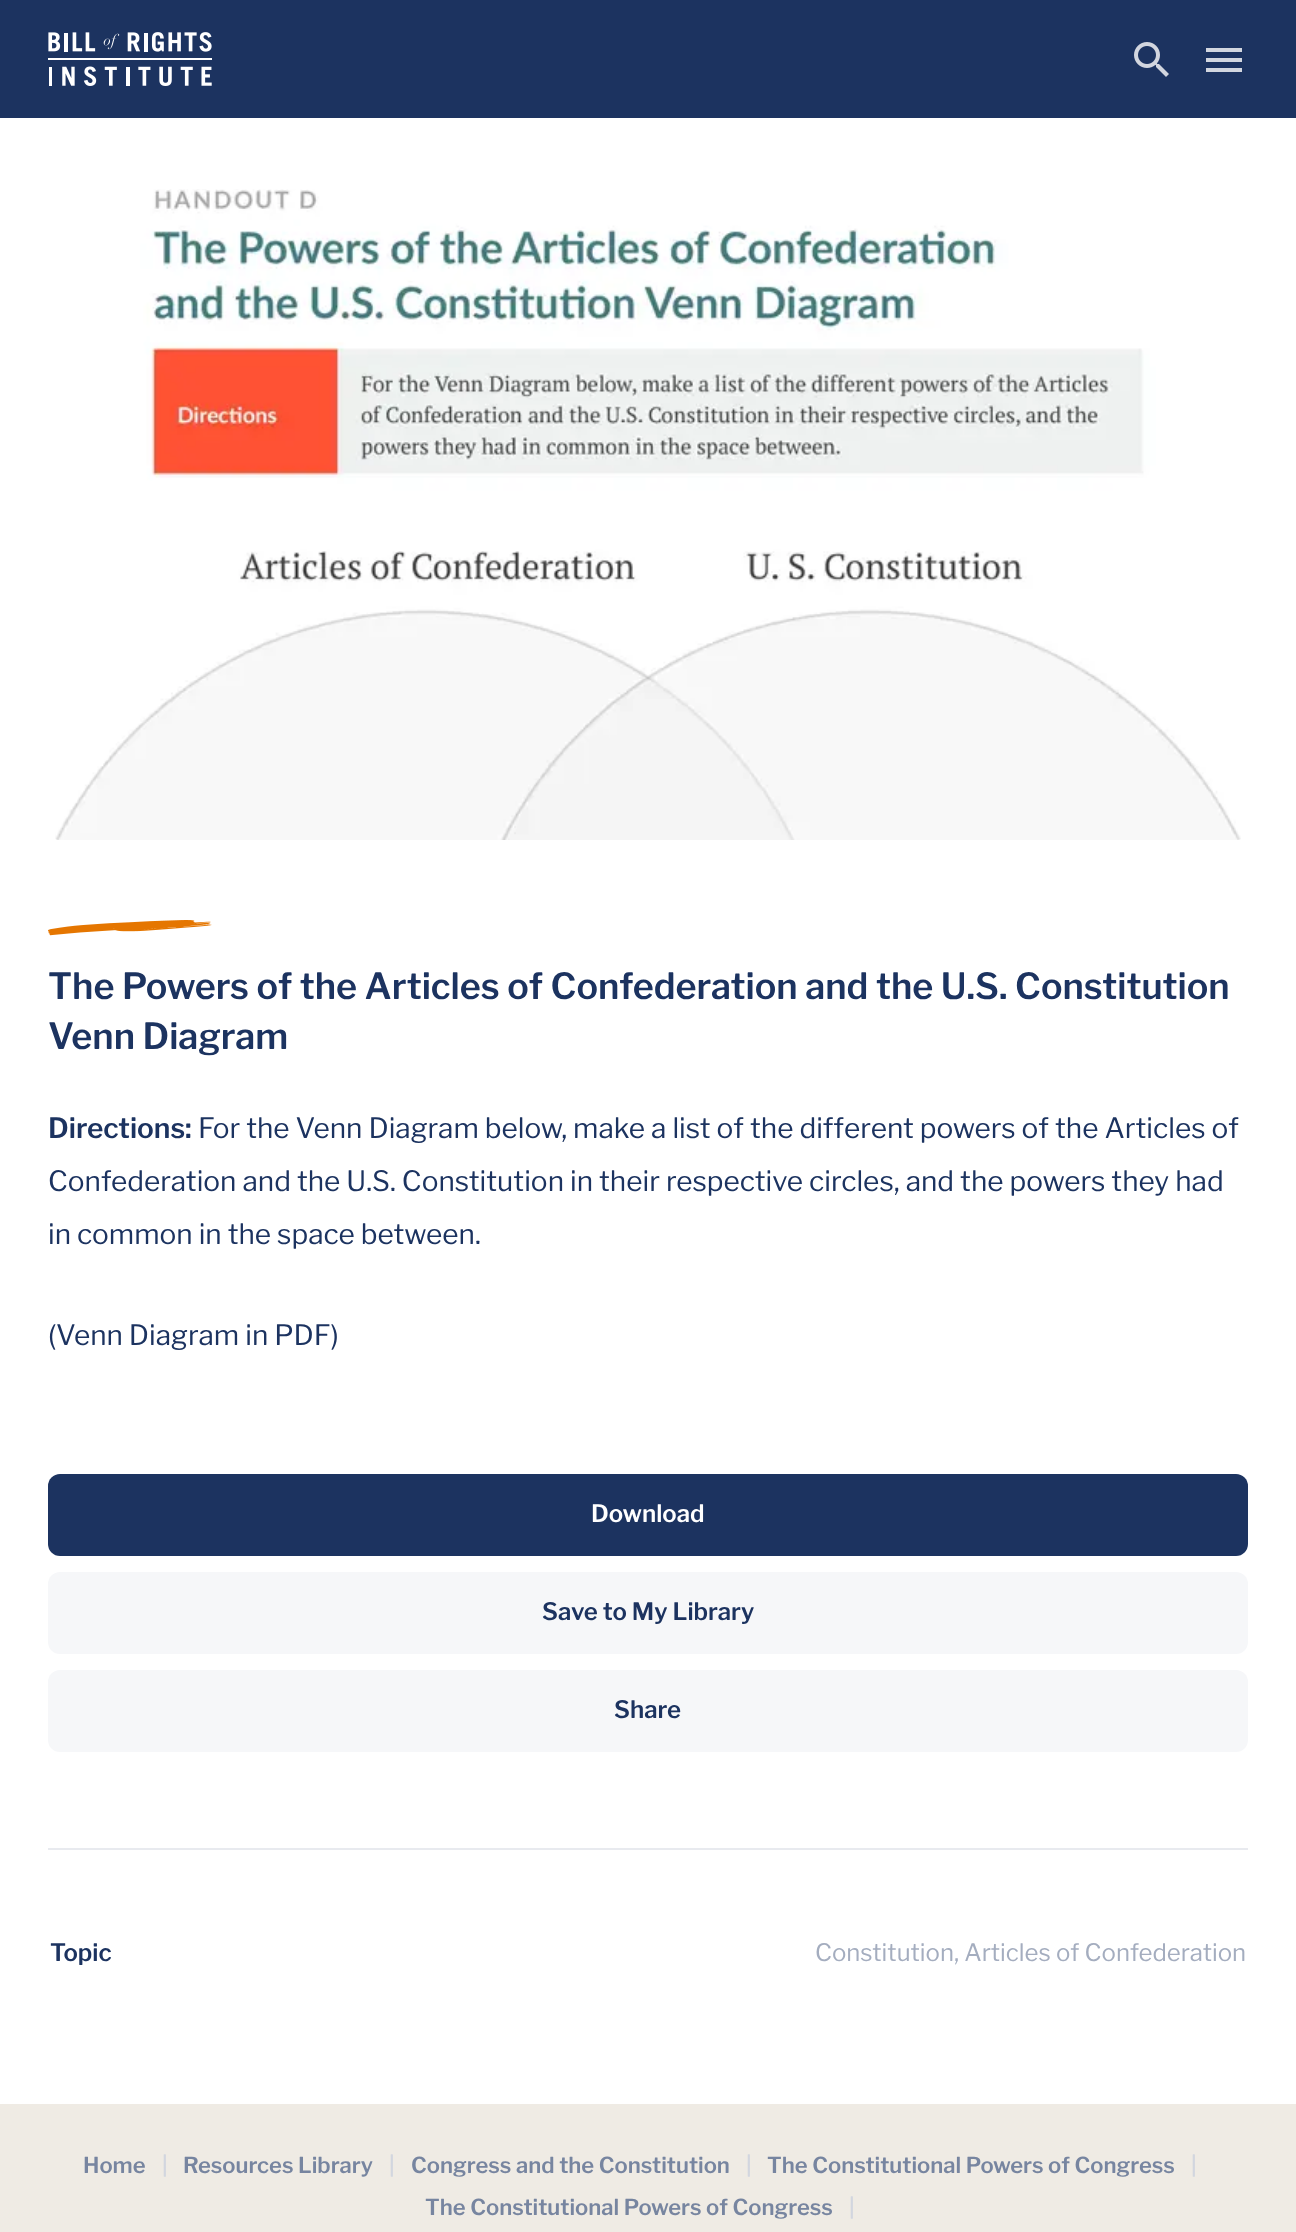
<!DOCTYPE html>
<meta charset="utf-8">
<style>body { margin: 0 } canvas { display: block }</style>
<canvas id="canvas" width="1296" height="2232"></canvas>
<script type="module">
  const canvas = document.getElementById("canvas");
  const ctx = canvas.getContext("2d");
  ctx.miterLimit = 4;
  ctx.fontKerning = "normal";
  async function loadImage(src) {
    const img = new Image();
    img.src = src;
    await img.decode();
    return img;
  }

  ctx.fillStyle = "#ffffff";
  ctx.fillRect(0, 0, 1296, 2232);
  ctx.fillStyle = "#1c3360";
  ctx.fillRect(0, 0, 1296, 118);
  ctx.drawImage(await loadImage("img1.png"), 48, 32, 164, 54);
  ctx.drawImage(await loadImage("img2.png"), 1134, 42, 35, 35);
  ctx.fillStyle = "#d2d6df";
  ctx.beginPath();
  ctx.moveTo(1206, 72);
  ctx.lineTo(1242, 72);
  ctx.lineTo(1242, 68);
  ctx.lineTo(1206, 68);
  ctx.closePath();
  ctx.moveTo(1206, 62);
  ctx.lineTo(1242, 62);
  ctx.lineTo(1242, 58);
  ctx.lineTo(1206, 58);
  ctx.closePath();
  ctx.moveTo(1206, 48);
  ctx.lineTo(1206, 52);
  ctx.lineTo(1242, 52);
  ctx.lineTo(1242, 48);
  ctx.closePath();
  ctx.fill();
  ctx.drawImage(await loadImage("img3.png"), 55, 189, 1186, 651);
  ctx.drawImage(await loadImage("img4.png"), 48, 920, 164, 16);
  ctx.font = "600 36px Libre Franklin";
  ctx.fillStyle = "#1c3360";
  ctx.fillText("The Powers of the Articles of Confederation and the U.S. Constitution", 48, 999);
  ctx.fillText("Venn Diagram", 48, 1049);
  ctx.font = "600 28px Libre Franklin";
  ctx.fillText("Directions:", 48, 1138);
  ctx.font = "28px Libre Franklin";
  ctx.fillText("For the Venn Diagram below, make a list of the different powers of the Articles of", 198, 1138);
  ctx.fillText("Confederation and the U.S. Constitution in their respective circles, and the powers they had", 48, 1191);
  ctx.fillText("in common in the space between.", 48, 1244);
  ctx.fillText("(Venn Diagram in PDF)", 48, 1345);
  ctx.beginPath();
  ctx.roundRect(48, 1474, 1200, 82, 12);
  ctx.fill();
  ctx.font = "600 24px Libre Franklin";
  ctx.fillStyle = "#ffffff";
  ctx.fillText("Download", 591, 1522);
  ctx.fillStyle = "#f6f7f9";
  ctx.beginPath();
  ctx.roundRect(48, 1572, 1200, 82, 12);
  ctx.fill();
  ctx.fillStyle = "#1c3360";
  ctx.fillText("Save to My Library", 542, 1620);
  ctx.fillStyle = "#f6f7f9";
  ctx.beginPath();
  ctx.roundRect(48, 1670, 1200, 82, 12);
  ctx.fill();
  ctx.fillStyle = "#1c3360";
  ctx.fillText("Share", 614, 1718);
  ctx.fillStyle = "#e8eaef";
  ctx.fillRect(48, 1848, 1200, 2);
  ctx.fillStyle = "#1c3360";
  ctx.fillText("Topic", 50, 1961);
  ctx.font = "24px Libre Franklin";
  ctx.fillStyle = "#a4adbf";
  ctx.fillText("Constitution, Articles of Confederation", 815, 1961);
  ctx.fillStyle = "#efebe4";
  ctx.fillRect(0, 2104, 1296, 128);
  ctx.font = "600 22px Libre Franklin";
  ctx.fillStyle = "#7785a0";
  ctx.fillText("Home", 83, 2173);
  ctx.fillStyle = "#d2d6df";
  ctx.fillText("|", 162, 2173);
  ctx.fillStyle = "#7785a0";
  ctx.fillText("Resources Library", 183, 2173);
  ctx.fillStyle = "#d2d6df";
  ctx.fillText("|", 389, 2173);
  ctx.fillStyle = "#7785a0";
  ctx.fillText("Congress and the Constitution", 411, 2173);
  ctx.fillStyle = "#d2d6df";
  ctx.fillText("|", 746, 2173);
  ctx.fillStyle = "#7785a0";
  ctx.fillText("The Constitutional Powers of Congress", 767, 2173);
  ctx.fillStyle = "#d2d6df";
  ctx.fillText("|", 1191, 2173);
  ctx.fillStyle = "#7785a0";
  ctx.fillText("The Constitutional Powers of Congress", 425, 2215);
  ctx.fillStyle = "#d2d6df";
  ctx.fillText("|", 849, 2215);
</script>
